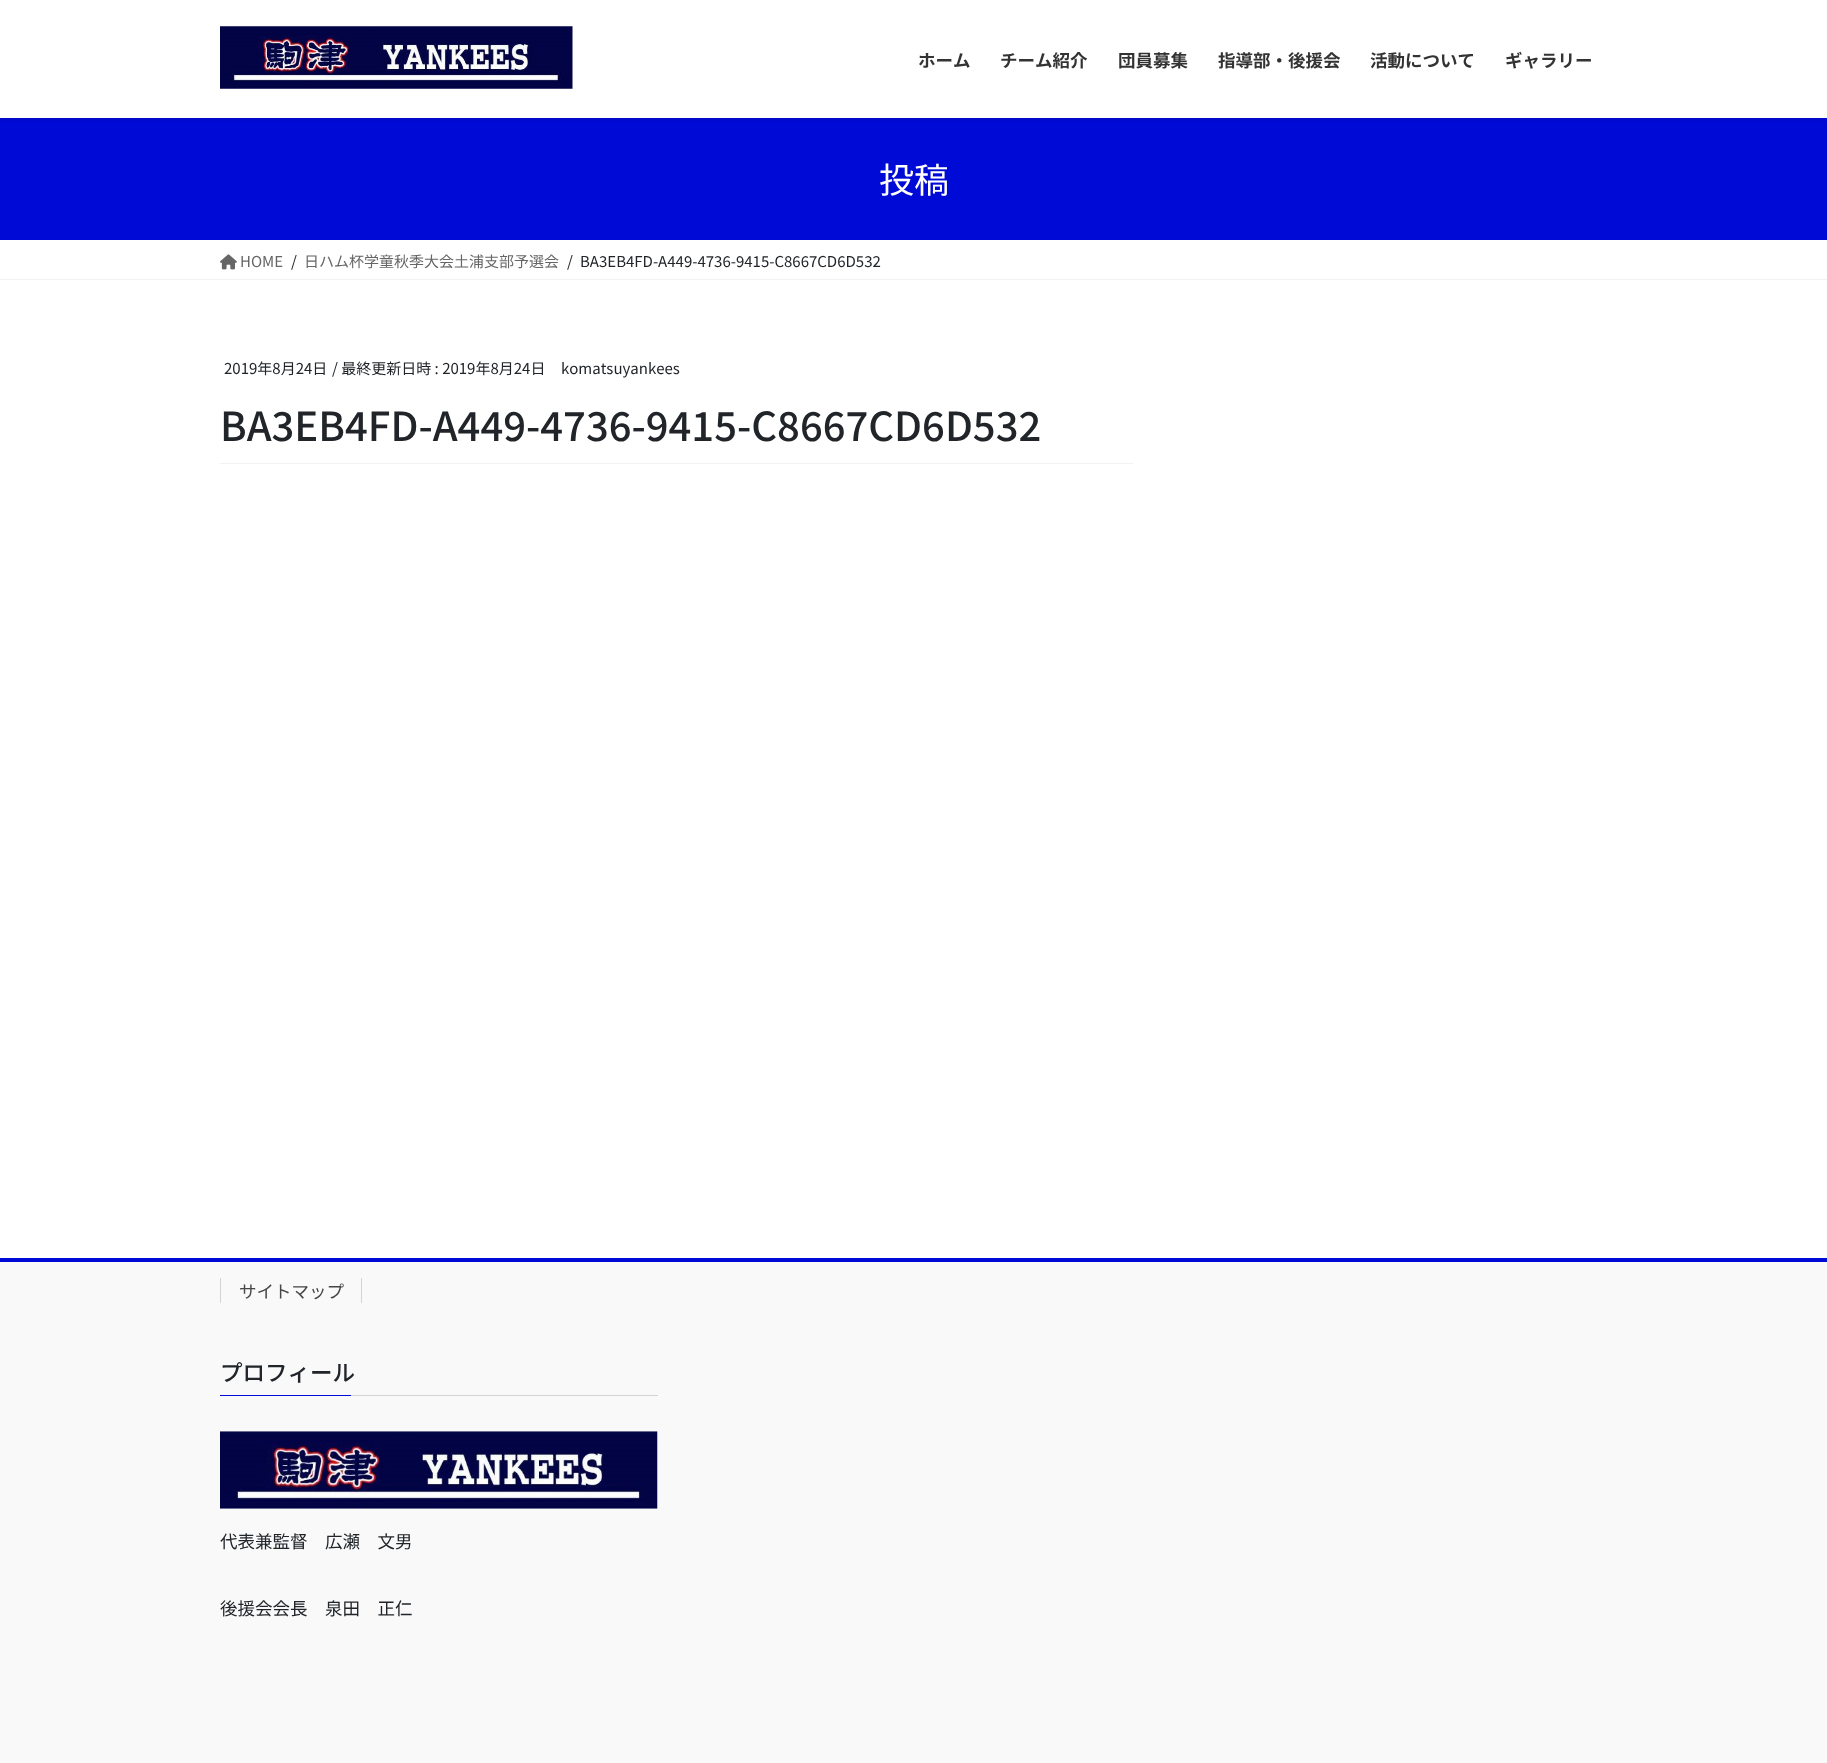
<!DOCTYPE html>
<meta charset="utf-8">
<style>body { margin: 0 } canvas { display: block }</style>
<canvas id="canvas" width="1827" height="1763"></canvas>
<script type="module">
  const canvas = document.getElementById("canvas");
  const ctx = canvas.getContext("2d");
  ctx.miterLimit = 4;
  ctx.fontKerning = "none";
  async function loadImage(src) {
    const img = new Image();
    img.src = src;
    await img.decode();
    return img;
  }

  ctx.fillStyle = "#ffffff";
  ctx.fillRect(0, 0, 1827, 1763);
  ctx.fillStyle = "#000ad6";
  ctx.fillRect(0, 118, 1827, 122);
  ctx.fillStyle = "rgba(0, 0, 0, 0.1)";
  ctx.filter = "blur(2px)";
  ctx.beginPath();
  ctx.rect(0, 1, 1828, 118);
  ctx.fill();
  ctx.filter = "none";
  ctx.fillStyle = "#ffffff";
  ctx.fillRect(0, 0, 1827, 118);
  ctx.drawImage(await loadImage("img1.png"), 220, 26, 353, 63);
  ctx.font = "bold 17.5px Noto Sans JP";
  ctx.fillStyle = "#333333";
  ctx.fillText("ホーム", 918, 67);
  ctx.fillText("チーム紹介", 1000, 67);
  ctx.fillText("団員募集", 1118, 67);
  ctx.fillText("指導部・後援会", 1218, 67);
  ctx.fillText("活動について", 1370, 67);
  ctx.fillText("ギャラリー", 1505, 67);
  ctx.font = "35px Noto Sans JP";
  ctx.fillStyle = "#ffffff";
  ctx.fillText("投稿", 879, 193);
  ctx.fillStyle = "#f2f2f2";
  ctx.fillRect(0, 279, 1827, 1);
  ctx.drawImage(await loadImage("img2.png"), 220, 254, 17, 16);
  ctx.font = "15px Noto Sans JP";
  ctx.fillStyle = "#666666";
  ctx.fillText("HOME", 240, 267);
  ctx.fillStyle = "#212529";
  ctx.fillText("/", 291, 267);
  ctx.fillStyle = "#666666";
  ctx.fillText("日ハム杯学童秋季大会土浦支部予選会", 304, 267);
  ctx.fillStyle = "#212529";
  ctx.fillText("/", 567, 267);
  ctx.fillText("BA3EB4FD-A449-4736-9415-C8667CD6D532", 580, 267);
  ctx.fillStyle = "#f2f2f2";
  ctx.fillRect(220, 463, 913, 1);
  ctx.fillStyle = "#212529";
  ctx.fillText("2019年8月24日", 224, 374);
  ctx.fillText("/ 最終更新日時 : 2019年8月24日", 332, 374);
  ctx.fillText("komatsuyankees", 561, 374);
  ctx.font = "500 40px Noto Sans JP";
  ctx.fillText("BA3EB4FD-A449-4736-9415-C8667CD6D532", 220, 441);
  ctx.fillStyle = "#f9f9f9";
  ctx.fillRect(0, 1262, 1827, 501);
  ctx.fillStyle = "#000ad6";
  ctx.fillRect(0, 1258, 1827, 4);
  ctx.font = "17.5px Noto Sans JP";
  ctx.fillStyle = "#464646";
  ctx.fillText("サイトマップ", 239, 1298);
  ctx.fillStyle = "#d4d4d4";
  ctx.fillRect(361, 1278, 1, 25);
  ctx.fillRect(220, 1278, 1, 25);
  ctx.fillRect(351, 1395, 307, 1);
  ctx.font = "500 22.5px Noto Sans JP";
  ctx.fillStyle = "#212529";
  ctx.fillText("プロフィール", 220, 1381);
  ctx.fillStyle = "#000ad6";
  ctx.fillRect(220, 1395, 131, 1);
  ctx.drawImage(await loadImage("img3.png"), 220, 1431, 438, 78);
  ctx.font = "17.5px Noto Sans JP";
  ctx.fillStyle = "#212529";
  ctx.fillText("代表兼監督　広瀬　文男", 220, 1548);
  ctx.fillText("後援会会長　泉田　正仁", 220, 1615);
</script>
